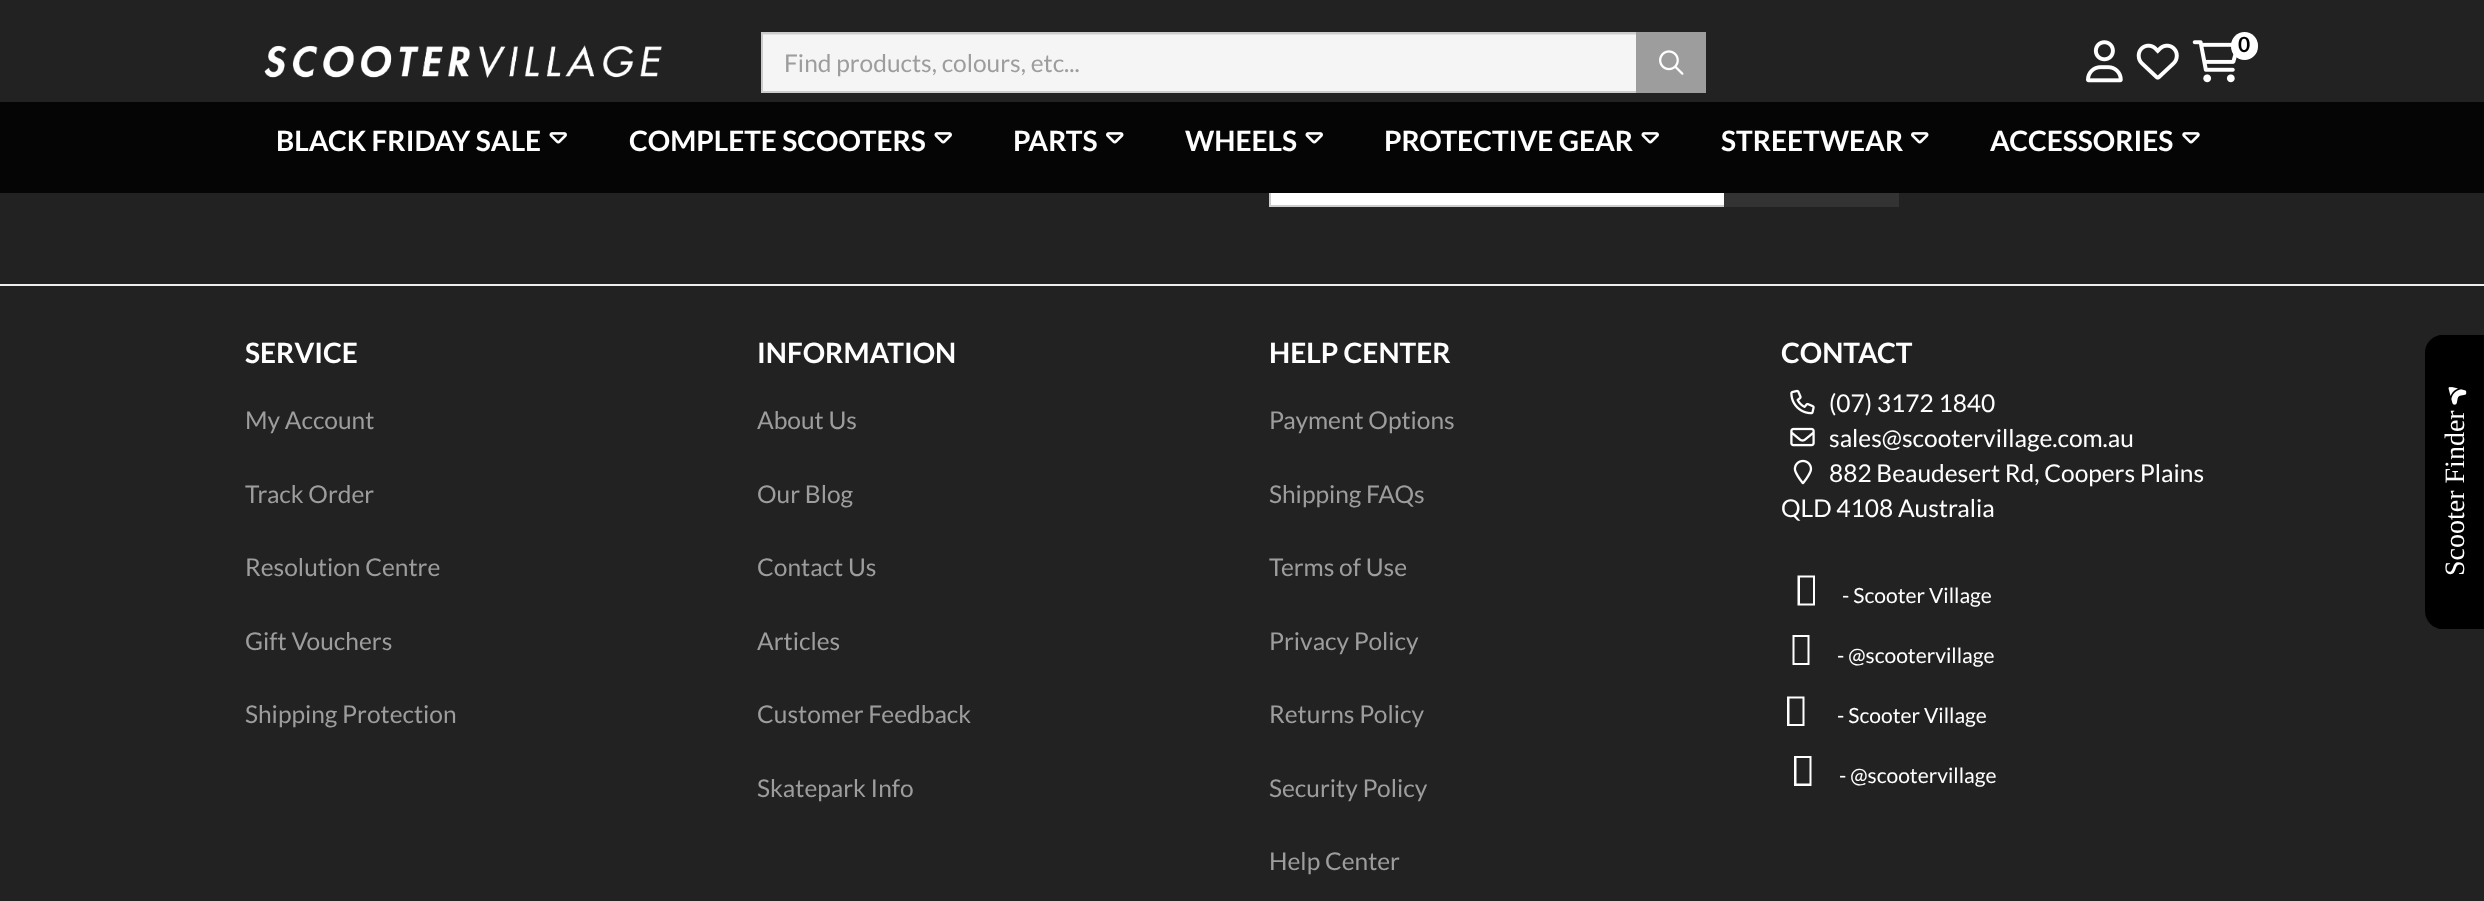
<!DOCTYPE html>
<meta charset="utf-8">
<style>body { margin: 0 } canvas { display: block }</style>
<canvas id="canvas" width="2484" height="901"></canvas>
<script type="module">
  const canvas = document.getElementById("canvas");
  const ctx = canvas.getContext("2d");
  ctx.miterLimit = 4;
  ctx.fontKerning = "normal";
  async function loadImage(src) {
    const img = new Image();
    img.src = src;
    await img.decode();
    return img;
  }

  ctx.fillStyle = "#222222";
  ctx.fillRect(0, 0, 2484, 901);
  ctx.drawImage(await loadImage("img1.png"), 2086, 40, 37, 43);
  ctx.drawImage(await loadImage("img2.png"), 2136, 43, 43, 37);
  ctx.drawImage(await loadImage("img3.png"), 2192, 40, 45, 43);
  ctx.fillStyle = "#ffffff";
  ctx.beginPath();
  ctx.roundRect(2231, 32, 27, 28, 13.5);
  ctx.fill();
  ctx.font = "bold 21px Lato";
  ctx.fillStyle = "#000000";
  ctx.fillText("0", 2238, 52);
  ctx.drawImage(await loadImage("img4.png"), 264, 45, 398, 33);
  ctx.fillStyle = "#f5f5f5";
  ctx.fillRect(763, 35, 873, 56);
  ctx.fillStyle = "#e3e3e3";
  ctx.fillRect(763, 34, 873, 1);
  ctx.strokeStyle = "#cccccc";
  ctx.lineWidth = 2;
  ctx.strokeRect(762, 33, 943, 59);
  ctx.font = "24.5px Lato";
  ctx.fillStyle = "#9d9d9d";
  ctx.fillText("Find products, colours, etc...", 784, 72);
  ctx.fillRect(1636, 32, 70, 61);
  ctx.drawImage(await loadImage("img5.png"), 1659, 50, 25, 25);
  ctx.fillStyle = "#ffffff";
  ctx.fillRect(1271, 193, 453, 12);
  ctx.strokeRect(1270, 148, 455, 58);
  ctx.fillStyle = "#050505";
  ctx.fillRect(0, 102, 2484, 91);
  ctx.font = "bold 28px Lato";
  ctx.fillStyle = "#ffffff";
  ctx.fillText("BLACK FRIDAY SALE", 276, 151);
  ctx.drawImage(await loadImage("img6.png"), 549, 132, 18, 12);
  ctx.fillText("COMPLETE SCOOTERS", 629, 151);
  ctx.drawImage(await loadImage("img6.png"), 934, 132, 18, 12);
  ctx.fillText("PARTS", 1013, 151);
  ctx.drawImage(await loadImage("img7.png"), 1106, 132, 18, 12);
  ctx.fillText("WHEELS", 1185, 151);
  ctx.drawImage(await loadImage("img6.png"), 1305, 132, 18, 12);
  ctx.fillText("PROTECTIVE GEAR", 1384, 151);
  ctx.drawImage(await loadImage("img6.png"), 1641, 132, 18, 12);
  ctx.fillText("STREETWEAR", 1721, 151);
  ctx.drawImage(await loadImage("img7.png"), 1911, 132, 18, 12);
  ctx.fillText("ACCESSORIES", 1990, 151);
  ctx.drawImage(await loadImage("img8.png"), 2182, 132, 18, 12);
  ctx.fillStyle = "#333333";
  ctx.fillRect(1724, 193, 175, 14);
  ctx.fillStyle = "#eeeeee";
  ctx.fillRect(0, 284, 2484, 2);
  ctx.fillStyle = "#ffffff";
  ctx.fillText("SERVICE", 245, 363);
  ctx.font = "24.5px Lato";
  ctx.fillStyle = "#9d9d9d";
  ctx.fillText("My Account", 245, 429);
  ctx.fillText("Track Order", 245, 503);
  ctx.fillText("Resolution Centre", 245, 576);
  ctx.fillText("Gift Vouchers", 245, 650);
  ctx.fillText("Shipping Protection", 245, 723);
  ctx.font = "bold 28px Lato";
  ctx.fillStyle = "#ffffff";
  ctx.fillText("INFORMATION", 757, 363);
  ctx.font = "24.5px Lato";
  ctx.fillStyle = "#9d9d9d";
  ctx.fillText("About Us", 757, 429);
  ctx.fillText("Our Blog", 757, 503);
  ctx.fillText("Contact Us", 757, 576);
  ctx.fillText("Articles", 757, 650);
  ctx.fillText("Customer Feedback", 757, 723);
  ctx.fillText("Skatepark Info", 757, 797);
  ctx.font = "bold 28px Lato";
  ctx.fillStyle = "#ffffff";
  ctx.fillText("HELP CENTER", 1269, 363);
  ctx.font = "24.5px Lato";
  ctx.fillStyle = "#9d9d9d";
  ctx.fillText("Payment Options", 1269, 429);
  ctx.fillText("Shipping FAQs", 1269, 503);
  ctx.fillText("Terms of Use", 1269, 576);
  ctx.fillText("Privacy Policy", 1269, 650);
  ctx.fillText("Returns Policy", 1269, 723);
  ctx.fillText("Security Policy", 1269, 797);
  ctx.fillText("Help Center", 1269, 870);
  ctx.font = "bold 28px Lato";
  ctx.fillStyle = "#ffffff";
  ctx.fillText("CONTACT", 1781, 363);
  ctx.drawImage(await loadImage("img9.png"), 1790, 389, 25, 26);
  ctx.font = "24.5px Lato";
  ctx.fillText("(07) 3172 1840", 1829, 412);
  ctx.drawImage(await loadImage("img10.png"), 1790, 427, 25, 20);
  ctx.fillText("sales@scootervillage.com.au", 1829, 447);
  ctx.drawImage(await loadImage("img11.png"), 1793, 459, 20, 26);
  ctx.fillText("882 Beaudesert Rd, Coopers Plains", 1829, 482);
  ctx.fillText("QLD 4108 Australia", 1781, 517);
  ctx.beginPath();
  ctx.moveTo(1797.5, 605.5);
  ctx.lineTo(1797.5, 575.5);
  ctx.lineTo(1815, 575.5);
  ctx.lineTo(1815, 605.5);
  ctx.closePath();
  ctx.moveTo(1800, 603.5);
  ctx.lineTo(1813, 603.5);
  ctx.lineTo(1813, 577.5);
  ctx.lineTo(1800, 577.5);
  ctx.closePath();
  ctx.fill();
  ctx.font = "21px Lato";
  ctx.fillText("- Scooter Village", 1842, 603);
  ctx.beginPath();
  ctx.moveTo(1792.5, 665);
  ctx.lineTo(1792.5, 635);
  ctx.lineTo(1809.5, 635);
  ctx.lineTo(1809.5, 665);
  ctx.closePath();
  ctx.moveTo(1794.5, 663);
  ctx.lineTo(1807.5, 663);
  ctx.lineTo(1807.5, 637);
  ctx.lineTo(1794.5, 637);
  ctx.closePath();
  ctx.fill();
  ctx.fillText("- @scootervillage", 1837, 663);
  ctx.beginPath();
  ctx.moveTo(1787, 726);
  ctx.lineTo(1787, 696.5);
  ctx.lineTo(1804.5, 696.5);
  ctx.lineTo(1804.5, 726);
  ctx.closePath();
  ctx.moveTo(1789.5, 724);
  ctx.lineTo(1802.5, 724);
  ctx.lineTo(1802.5, 698.5);
  ctx.lineTo(1789.5, 698.5);
  ctx.closePath();
  ctx.fill();
  ctx.fillText("- Scooter Village", 1837, 723);
  ctx.beginPath();
  ctx.moveTo(1794, 786);
  ctx.lineTo(1794, 756);
  ctx.lineTo(1811.5, 756);
  ctx.lineTo(1811.5, 786);
  ctx.closePath();
  ctx.moveTo(1796.5, 783.5);
  ctx.lineTo(1809.5, 783.5);
  ctx.lineTo(1809.5, 758);
  ctx.lineTo(1796.5, 758);
  ctx.closePath();
  ctx.fill();
  ctx.fillText("- @scootervillage", 1839, 783);
  ctx.fillStyle = "#000000";
  ctx.beginPath();
  ctx.moveTo(2425, 611);
  ctx.lineTo(2425, 352);
  ctx.bezierCurveTo(2425, 343, 2433, 335, 2442, 335);
  ctx.lineTo(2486, 335);
  ctx.lineTo(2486, 629);
  ctx.lineTo(2442, 629);
  ctx.bezierCurveTo(2433, 629, 2425, 621, 2425, 611);
  ctx.closePath();
  ctx.fill();
  ctx.drawImage(await loadImage("img12.png"), 2448, 387, 19, 18);
  ctx.font = "28px Liberation Serif";
  ctx.fillStyle = "#ffffff";
  ctx.save();
  ctx.translate(2464, 576);
  ctx.rotate(-90 * Math.PI / 180);
  ctx.fillText("Scooter Finder", 0, 0);
  ctx.restore();
</script>
